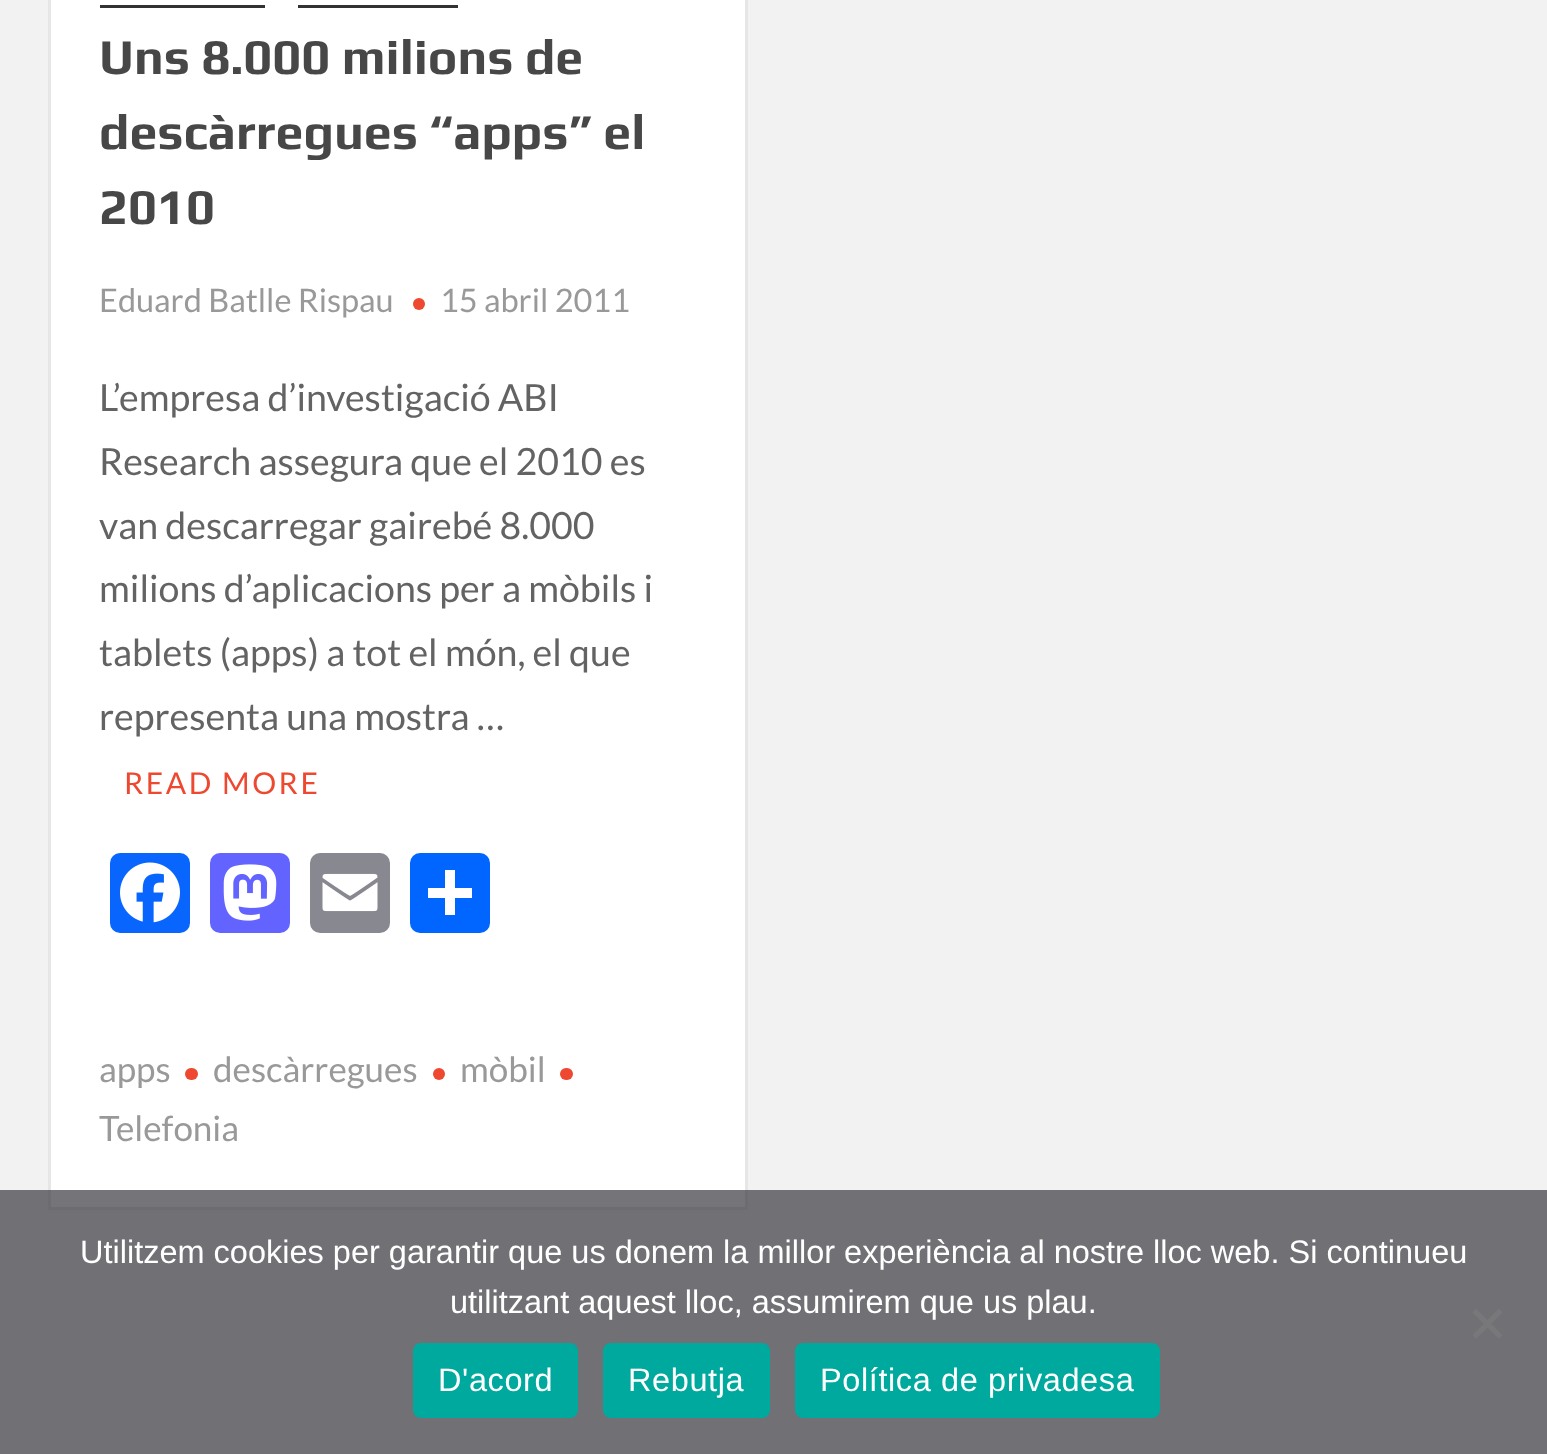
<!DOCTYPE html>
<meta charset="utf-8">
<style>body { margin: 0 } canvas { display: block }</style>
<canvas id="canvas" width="1547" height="1454"></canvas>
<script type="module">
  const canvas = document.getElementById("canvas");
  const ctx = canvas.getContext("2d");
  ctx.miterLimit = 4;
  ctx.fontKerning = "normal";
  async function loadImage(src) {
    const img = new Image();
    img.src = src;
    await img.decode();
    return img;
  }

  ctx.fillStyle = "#f2f2f2";
  ctx.fillRect(0, 0, 1547, 1454);
  ctx.fillStyle = "#ffffff";
  ctx.beginPath();
  ctx.rect(49.5, -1.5, 697, 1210);
  ctx.fill();
  ctx.strokeStyle = "#e6e6e6";
  ctx.lineWidth = 3;
  ctx.stroke();
  ctx.fillStyle = "#333333";
  ctx.fillRect(100, 5, 165, 3);
  ctx.fillRect(298, 5, 160, 3);
  ctx.font = "bold 50px Play";
  ctx.fillStyle = "#474747";
  ctx.fillText("Uns 8.000 milions de", 99, 74);
  ctx.fillText("descàrregues “apps” el", 99, 149);
  ctx.fillText("2010", 99, 224);
  ctx.font = "32.5px Lato";
  ctx.fillStyle = "#999999";
  ctx.fillText("Eduard Batlle Rispau", 99, 312);
  ctx.fillStyle = "#ee4930";
  ctx.beginPath();
  ctx.arc(419, 304, 6, 0, Math.PI * 2);
  ctx.fill();
  ctx.fillStyle = "#999999";
  ctx.fillText("15 abril 2011", 440, 312);
  ctx.font = "37.5px Lato";
  ctx.fillStyle = "#636363";
  ctx.fillText("L’empresa d’investigació ABI", 99, 411);
  ctx.fillText("Research assegura que el 2010 es", 99, 475);
  ctx.fillText("van descarregar gairebé 8.000", 99, 539);
  ctx.fillText("milions d’aplicacions per a mòbils i", 99, 602);
  ctx.fillText("tablets (apps) a tot el món, el que", 99, 666);
  ctx.fillText("representa una mostra …", 99, 730);
  ctx.letterSpacing = "2.5px";
  ctx.font = "30px Lato";
  ctx.fillStyle = "#ee4930";
  ctx.fillText("READ MORE", 124, 794);
  ctx.fillStyle = "#0866ff";
  ctx.beginPath();
  ctx.roundRect(110, 853, 80, 80, 10);
  ctx.fill();
  ctx.drawImage(await loadImage("img1.png"), 120, 862, 60, 61);
  ctx.fillStyle = "#6364ff";
  ctx.beginPath();
  ctx.roundRect(210, 853, 80, 80, 10);
  ctx.fill();
  ctx.drawImage(await loadImage("img2.png"), 223, 864, 54, 57);
  ctx.fillStyle = "#888990";
  ctx.beginPath();
  ctx.roundRect(310, 853, 80, 80, 10);
  ctx.fill();
  ctx.drawImage(await loadImage("img3.png"), 322, 873, 56, 39);
  ctx.fillStyle = "#0166ff";
  ctx.beginPath();
  ctx.roundRect(410, 853, 80, 80, 10);
  ctx.fill();
  ctx.fillStyle = "#ffffff";
  ctx.fillRect(445, 870, 10, 45);
  ctx.fillRect(428, 888, 44, 10);
  ctx.letterSpacing = "0px";
  ctx.font = "35px Lato";
  ctx.fillStyle = "#999999";
  ctx.fillText("apps", 99, 1082);
  ctx.fillStyle = "#ee4930";
  ctx.beginPath();
  ctx.roundRect(185, 1068, 13, 12, 6);
  ctx.fill();
  ctx.fillStyle = "#999999";
  ctx.fillText("descàrregues", 213, 1082);
  ctx.fillStyle = "#ee4930";
  ctx.beginPath();
  ctx.arc(439, 1074, 6, 0, Math.PI * 2);
  ctx.fill();
  ctx.fillStyle = "#999999";
  ctx.fillText("mòbil", 460, 1082);
  ctx.fillStyle = "#ee4930";
  ctx.beginPath();
  ctx.roundRect(560, 1068, 13, 12, 6);
  ctx.fill();
  ctx.fillStyle = "#999999";
  ctx.fillText("Telefonia", 99, 1141);
  ctx.fillStyle = "rgba(50, 50, 58, 0.68)";
  ctx.fillRect(0, 1190, 1547, 264);
  ctx.font = "32.5px Liberation Sans";
  ctx.fillStyle = "#ffffff";
  ctx.fillText("Utilitzem cookies per garantir que us donem la millor experiència al nostre lloc web. Si continueu", 80, 1263);
  ctx.fillText("utilitzant aquest lloc, assumirem que us plau.", 450, 1313);
  ctx.fillStyle = "#78787a";
  ctx.beginPath();
  ctx.moveTo(1499, 1308.5);
  ctx.lineTo(1502.5, 1312.5);
  ctx.lineTo(1476, 1339);
  ctx.lineTo(1472.5, 1335);
  ctx.closePath();
  ctx.fill();
  ctx.beginPath();
  ctx.moveTo(1472.5, 1312.5);
  ctx.lineTo(1476, 1308.5);
  ctx.lineTo(1502.5, 1335);
  ctx.lineTo(1499, 1339);
  ctx.closePath();
  ctx.fill();
  ctx.fillStyle = "#00a99d";
  ctx.beginPath();
  ctx.roundRect(413, 1343, 165, 75, 8);
  ctx.fill();
  ctx.letterSpacing = "0.6px";
  ctx.fillStyle = "#ffffff";
  ctx.fillText("D'acord", 438, 1391);
  ctx.fillStyle = "#00a99d";
  ctx.beginPath();
  ctx.roundRect(603, 1343, 167, 75, 8);
  ctx.fill();
  ctx.fillStyle = "#ffffff";
  ctx.fillText("Rebutja", 628, 1391);
  ctx.fillStyle = "#00a99d";
  ctx.beginPath();
  ctx.roundRect(795, 1343, 365, 75, 8);
  ctx.fill();
  ctx.fillStyle = "#ffffff";
  ctx.fillText("Política de privadesa", 820, 1391);
</script>
